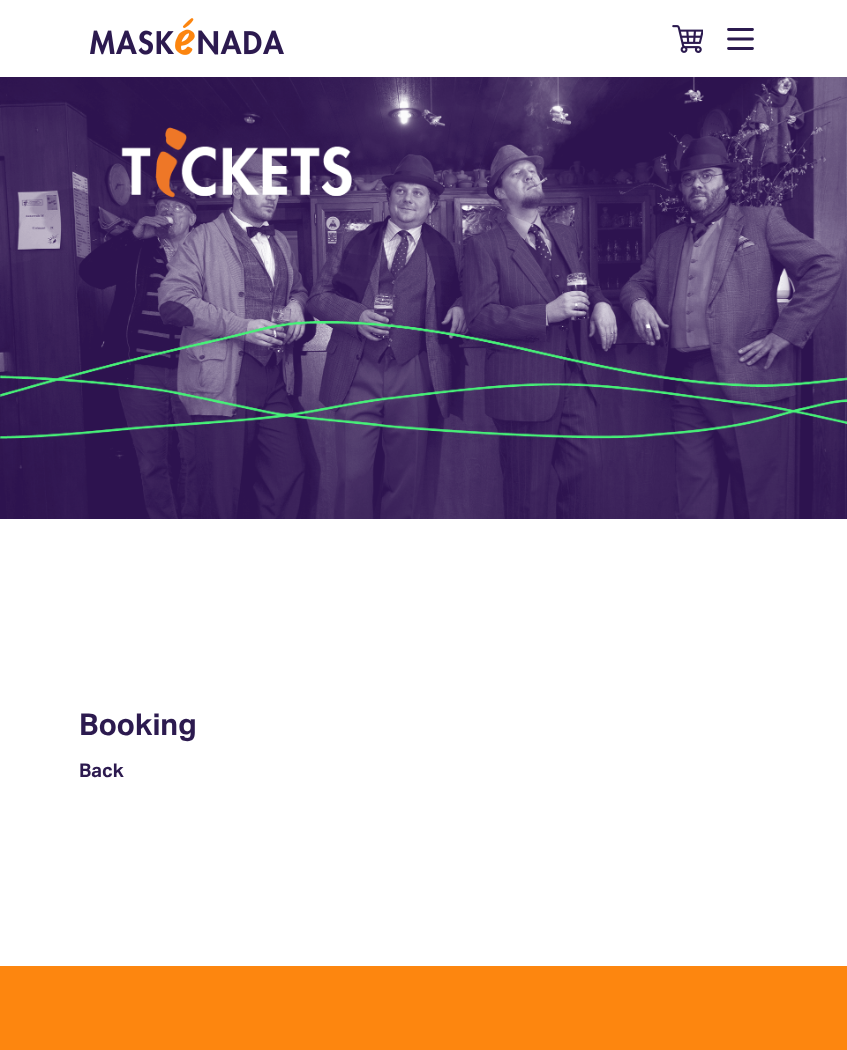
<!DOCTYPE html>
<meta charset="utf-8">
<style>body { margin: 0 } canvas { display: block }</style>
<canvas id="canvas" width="847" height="1050"></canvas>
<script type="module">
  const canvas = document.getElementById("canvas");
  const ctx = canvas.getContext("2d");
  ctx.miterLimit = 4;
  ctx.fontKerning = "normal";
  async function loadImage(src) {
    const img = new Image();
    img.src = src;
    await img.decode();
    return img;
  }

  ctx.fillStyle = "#ffffff";
  ctx.fillRect(0, 0, 847, 1050);
  ctx.drawImage(await loadImage("img1.png"), 90, 18, 194, 37);
  ctx.drawImage(await loadImage("img2.png"), 672, 25, 31, 28);
  ctx.beginPath();
  ctx.moveTo(728.5, 29.5);
  ctx.lineTo(752.5, 29.5);
  ctx.moveTo(728.5, 39);
  ctx.lineTo(752.5, 39);
  ctx.moveTo(728.5, 48.5);
  ctx.lineTo(752.5, 48.5);
  ctx.strokeStyle = "#2b1a4f";
  ctx.lineWidth = 2.8;
  ctx.lineCap = "round";
  ctx.stroke();
  ctx.drawImage(await loadImage("img3.png"), 0, 77, 847, 442);
  ctx.font = "bold 30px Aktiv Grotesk";
  ctx.fillStyle = "#2c1a4f";
  ctx.fillText("Booking", 79, 735);
  ctx.font = "bold 19px Aktiv Grotesk";
  ctx.fillText("Back", 79, 777);
  ctx.fillStyle = "#fd860f";
  ctx.fillRect(0, 966, 847, 84);
</script>
